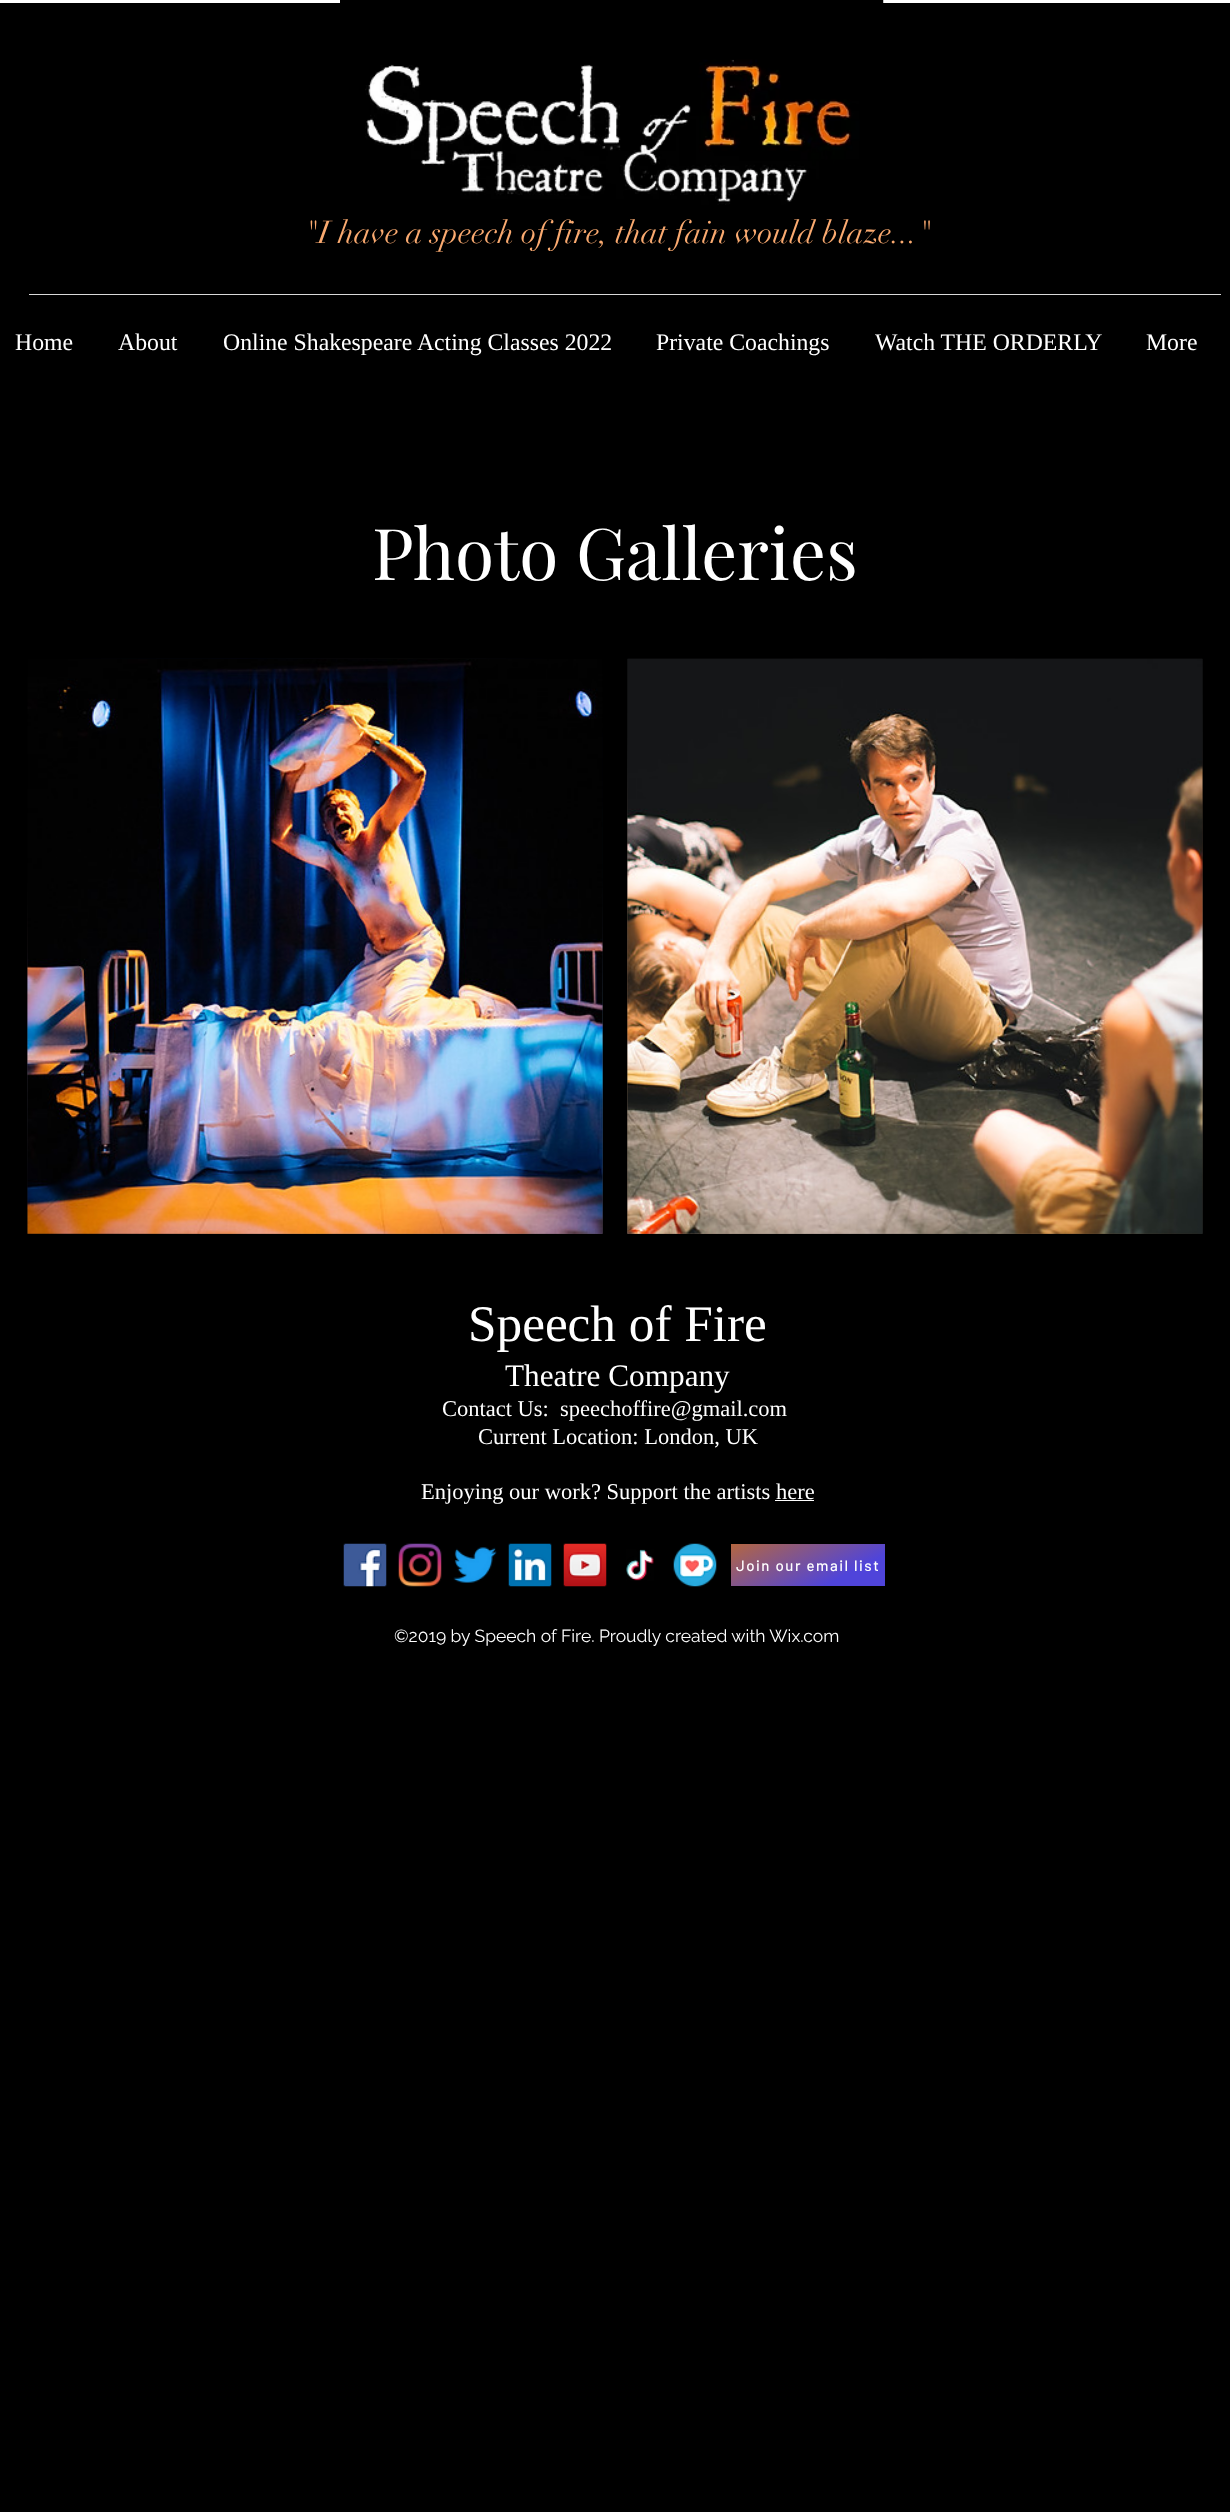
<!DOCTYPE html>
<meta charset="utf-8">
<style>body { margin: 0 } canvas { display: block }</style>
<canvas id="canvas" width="1230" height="2512"></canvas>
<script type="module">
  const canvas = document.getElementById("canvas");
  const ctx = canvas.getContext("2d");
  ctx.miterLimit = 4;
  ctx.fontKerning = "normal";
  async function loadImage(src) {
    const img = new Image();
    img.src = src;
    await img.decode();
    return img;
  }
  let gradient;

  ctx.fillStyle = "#000000";
  ctx.fillRect(0, 0, 1230, 2512);
  ctx.fillStyle = "#ffffff";
  ctx.fillRect(0, 0, 1230, 3);
  ctx.drawImage(await loadImage("img1.png"), 340, 0, 544, 205);
  ctx.font = "31.25px didot";
  ctx.fillStyle = "#faaa70";
  ctx.fillText("\"I have a speech of fire, that fain would blaze...\"", 304, 243);
  ctx.fillStyle = "#d9d9d9";
  ctx.fillRect(29, 294, 1192, 1);
  ctx.font = "23.75px Liberation Serif";
  ctx.fillStyle = "#ffffff";
  ctx.fillText("Home", 15, 350);
  ctx.fillText("About", 118, 350);
  ctx.fillText("Online Shakespeare Acting Classes 2022", 223, 350);
  ctx.fillText("Private Coachings", 656, 350);
  ctx.fillText("Watch THE ORDERLY", 875, 350);
  ctx.fillText("More", 1146, 350);
  ctx.font = "71.25px Playfair Display";
  ctx.fillText("Photo Galleries", 372, 580);
  ctx.drawImage(await loadImage("img2.png"), 27, 658, 576, 576);
  ctx.drawImage(await loadImage("img3.png"), 27, 659, 576, 575);
  ctx.drawImage(await loadImage("img4.png"), 627, 658, 576, 576);
  ctx.drawImage(await loadImage("img5.png"), 627, 658, 576, 576);
  ctx.font = "51.25px Liberation Serif";
  ctx.fillText("Speech of Fire", 468, 1341);
  ctx.font = "31.25px Liberation Serif";
  ctx.fillText("Theatre Company", 505, 1386);
  ctx.font = "22.5px Liberation Serif";
  ctx.fillText("Contact Us:", 442, 1416);
  ctx.fillText("speechoffire@gmail.com", 560, 1416);
  ctx.fillText("Current Location: London, UK", 478, 1444);
  ctx.fillText("Enjoying our work? Support the artists here", 421, 1499);
  ctx.fillRect(775, 1500, 39, 1);
  ctx.drawImage(await loadImage("img6.png"), 343, 1543, 44, 44);
  ctx.drawImage(await loadImage("img7.png"), 398, 1543, 44, 44);
  ctx.drawImage(await loadImage("img8.png"), 453, 1547, 44, 36);
  ctx.drawImage(await loadImage("img9.png"), 508, 1543, 44, 44);
  ctx.drawImage(await loadImage("img10.png"), 563, 1543, 44, 44);
  ctx.drawImage(await loadImage("img11.png"), 626, 1549, 28, 32);
  ctx.drawImage(await loadImage("img12.png"), 673, 1543, 44, 44);
  gradient = ctx.createLinearGradient(833, 1613, 784, 1517);
  gradient.addColorStop(0.26, "#4f44da");
  gradient.addColorStop(1, "#b46640");
  ctx.fillStyle = gradient;
  ctx.fillRect(731, 1544, 154, 42);
  ctx.letterSpacing = "1.5px";
  ctx.font = "500 15px Barlow";
  ctx.fillStyle = "#ffffff";
  ctx.fillText("Join our email list", 736, 1571);
  ctx.letterSpacing = "0px";
  ctx.font = "17.5px Raleway";
  ctx.fillText("©2019 by Speech of Fire. Proudly created with Wix.com", 394, 1642);
</script>
